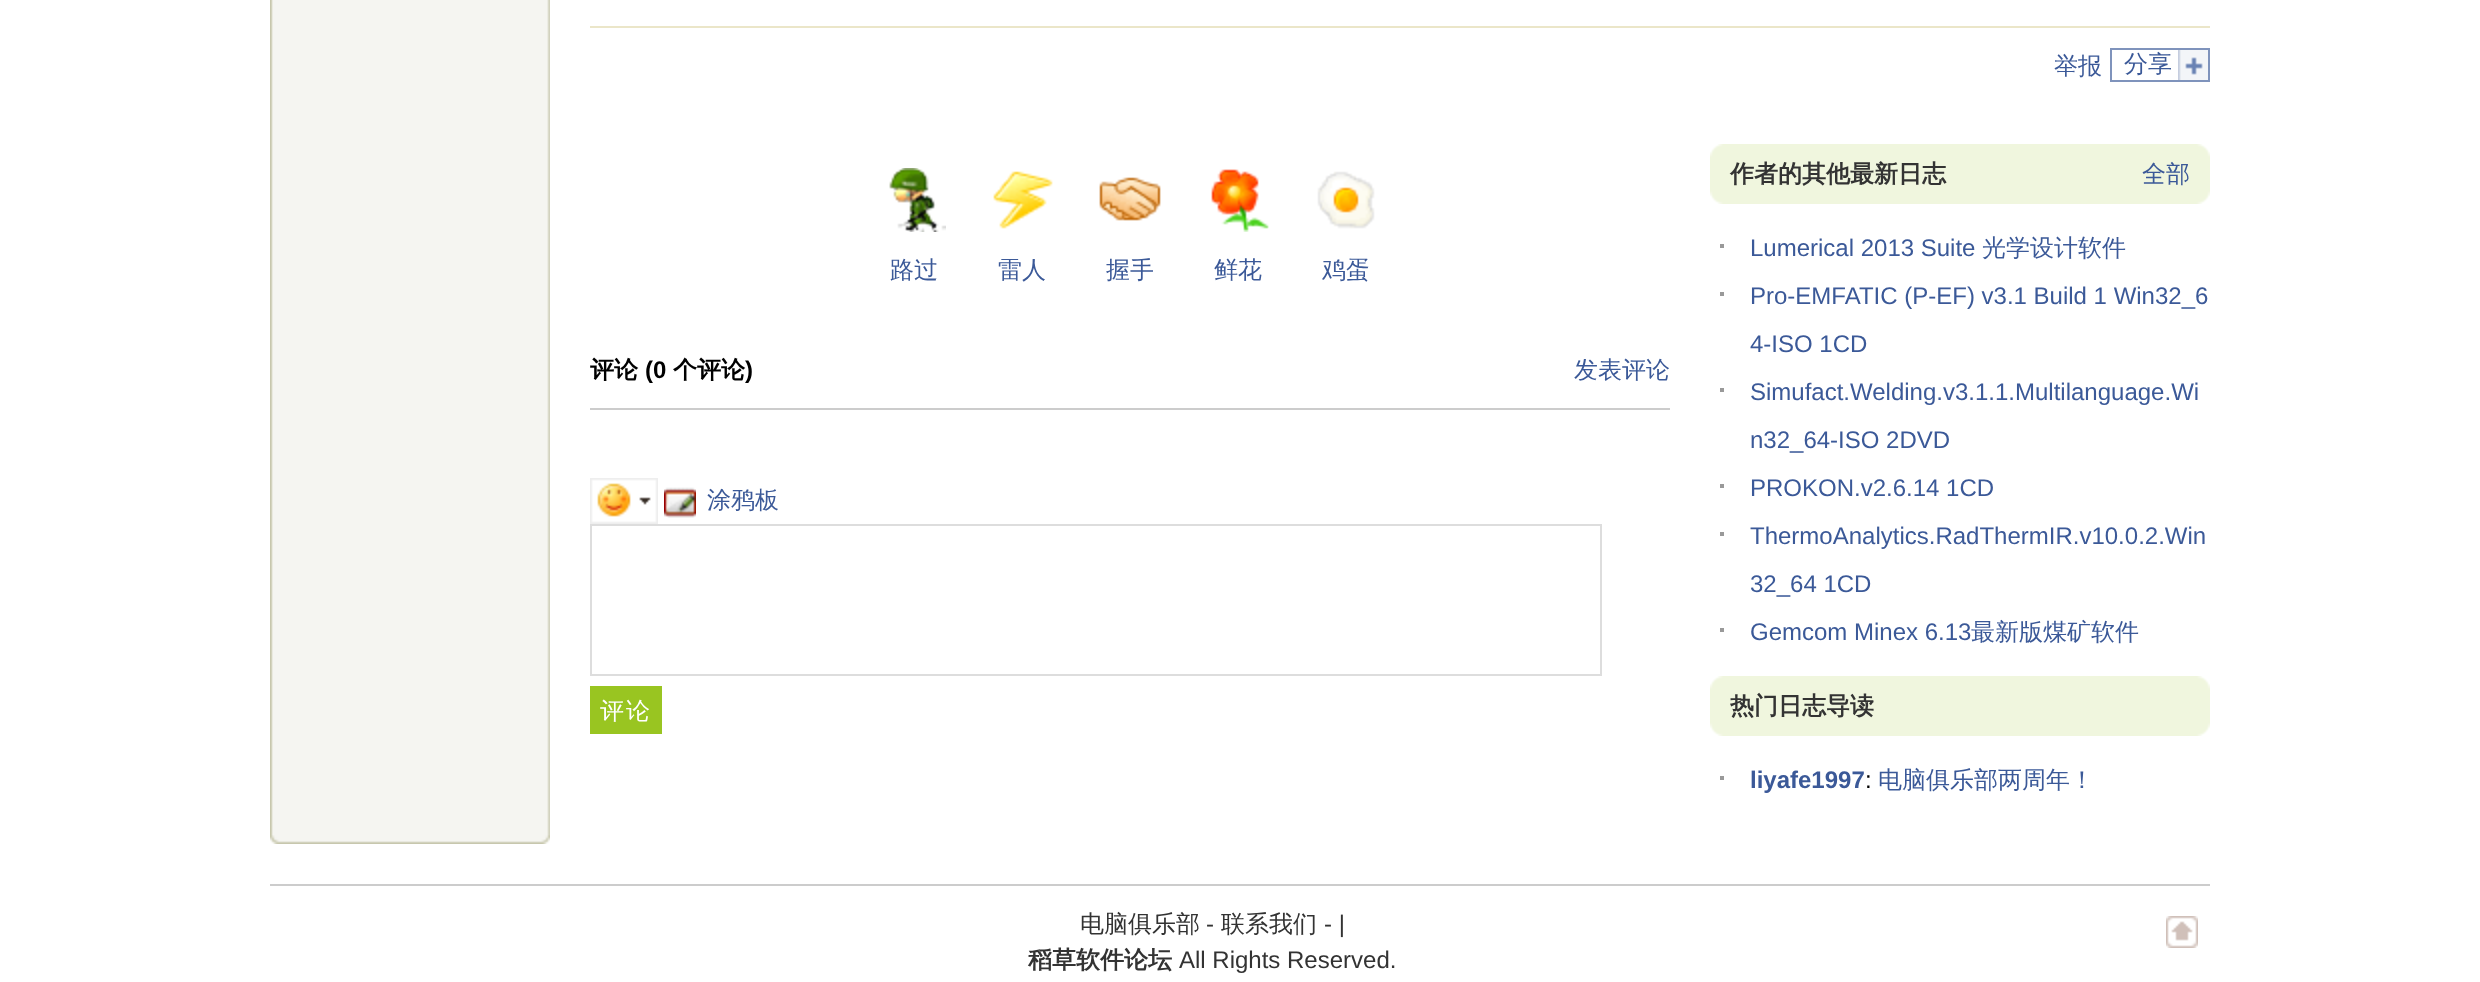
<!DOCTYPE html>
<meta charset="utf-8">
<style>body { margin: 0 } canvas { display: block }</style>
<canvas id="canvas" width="2480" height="982"></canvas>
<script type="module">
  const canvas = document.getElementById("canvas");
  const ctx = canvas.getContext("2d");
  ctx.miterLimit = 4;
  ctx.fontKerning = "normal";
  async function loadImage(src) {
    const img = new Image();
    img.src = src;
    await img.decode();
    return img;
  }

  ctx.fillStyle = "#ffffff";
  ctx.fillRect(0, 0, 2480, 982);
  ctx.drawImage(await loadImage("img1.png"), 270, 0, 280, 835);
  ctx.fillStyle = "#ebe6c9";
  ctx.fillRect(590, 26, 1620, 2);
  ctx.font = "500 24px WenQuanYi Zen Hei";
  ctx.fillStyle = "#3b5998";
  ctx.fillText("举报", 2054, 74);
  ctx.drawImage(await loadImage("img2.png"), 2178, 50, 30, 30);
  ctx.strokeStyle = "#7f93bc";
  ctx.lineWidth = 2;
  ctx.strokeRect(2111, 49, 98, 32);
  ctx.fillText("分享", 2124, 72);
  ctx.drawImage(await loadImage("img3.png"), 889, 168, 57, 64);
  ctx.fillText("路过", 890, 278);
  ctx.drawImage(await loadImage("img4.png"), 993, 171, 60, 58);
  ctx.fillText("雷人", 998, 278);
  ctx.drawImage(await loadImage("img5.png"), 1099, 177, 62, 44);
  ctx.fillText("握手", 1106, 278);
  ctx.drawImage(await loadImage("img6.png"), 1211, 169, 58, 63);
  ctx.fillText("鲜花", 1214, 278);
  ctx.drawImage(await loadImage("img7.png"), 1317, 171, 58, 58);
  ctx.fillText("鸡蛋", 1322, 278);
  ctx.fillStyle = "#cccccc";
  ctx.fillRect(590, 408, 1080, 2);
  ctx.font = "bold 24px WenQuanYi Zen Hei";
  ctx.fillStyle = "#000000";
  ctx.fillText("评论", 590, 378);
  ctx.font = "bold 24px Liberation Sans";
  ctx.fillText("(0", 645, 378);
  ctx.font = "bold 24px WenQuanYi Zen Hei";
  ctx.fillText("个评论", 673, 378);
  ctx.font = "bold 24px Liberation Sans";
  ctx.fillText(")", 745, 378);
  ctx.font = "500 24px WenQuanYi Zen Hei";
  ctx.fillStyle = "#3b5998";
  ctx.fillText("发表评论", 1574, 378);
  ctx.drawImage(await loadImage("img8.png"), 590, 478, 68, 46);
  ctx.drawImage(await loadImage("img9.png"), 664, 487, 32, 31);
  ctx.fillText("涂鸦板", 707, 508);
  ctx.strokeStyle = "#dddddd";
  ctx.strokeRect(591, 525, 1010, 150);
  ctx.fillStyle = "#99c521";
  ctx.fillRect(590, 686, 72, 48);
  ctx.letterSpacing = "2px";
  ctx.fillStyle = "#ffffff";
  ctx.fillText("评论", 600, 719);
  ctx.drawImage(await loadImage("img10.png"), 1710, 144, 500, 60);
  ctx.letterSpacing = "0px";
  ctx.font = "bold 24px WenQuanYi Zen Hei";
  ctx.fillStyle = "#333333";
  ctx.fillText("作者的其他最新日志", 1730, 182);
  ctx.font = "500 24px WenQuanYi Zen Hei";
  ctx.fillStyle = "#3b5998";
  ctx.fillText("全部", 2142, 182);
  ctx.fillStyle = "#999999";
  ctx.fillRect(1720, 244, 4, 4);
  ctx.font = "24px Liberation Sans";
  ctx.fillStyle = "#3b5998";
  ctx.fillText("Lumerical 2013 Suite", 1750, 256);
  ctx.font = "500 24px WenQuanYi Zen Hei";
  ctx.fillText("光学设计软件", 1982, 256);
  ctx.fillStyle = "#999999";
  ctx.fillRect(1720, 292, 4, 4);
  ctx.font = "24px Liberation Sans";
  ctx.fillStyle = "#3b5998";
  ctx.fillText("Pro-EMFATIC (P-EF) v3.1 Build 1 Win32_6", 1750, 304);
  ctx.fillText("4-ISO 1CD", 1750, 352);
  ctx.fillStyle = "#999999";
  ctx.fillRect(1720, 388, 4, 4);
  ctx.fillStyle = "#3b5998";
  ctx.fillText("Simufact.Welding.v3.1.1.Multilanguage.Wi", 1750, 400);
  ctx.fillText("n32_64-ISO 2DVD", 1750, 448);
  ctx.fillStyle = "#999999";
  ctx.fillRect(1720, 484, 4, 4);
  ctx.fillStyle = "#3b5998";
  ctx.fillText("PROKON.v2.6.14 1CD", 1750, 496);
  ctx.fillStyle = "#999999";
  ctx.fillRect(1720, 532, 4, 4);
  ctx.fillStyle = "#3b5998";
  ctx.fillText("ThermoAnalytics.RadThermIR.v10.0.2.Win", 1750, 544);
  ctx.fillText("32_64 1CD", 1750, 592);
  ctx.fillStyle = "#999999";
  ctx.fillRect(1720, 628, 4, 4);
  ctx.fillStyle = "#3b5998";
  ctx.fillText("Gemcom Minex 6.13", 1750, 640);
  ctx.font = "500 24px WenQuanYi Zen Hei";
  ctx.fillText("最新版煤矿软件", 1971, 640);
  ctx.drawImage(await loadImage("img10.png"), 1710, 676, 500, 60);
  ctx.font = "bold 24px WenQuanYi Zen Hei";
  ctx.fillStyle = "#333333";
  ctx.fillText("热门日志导读", 1730, 714);
  ctx.fillStyle = "#999999";
  ctx.fillRect(1720, 776, 4, 4);
  ctx.font = "bold 24px Liberation Sans";
  ctx.fillStyle = "#3b5998";
  ctx.fillText("liyafe1997", 1750, 788);
  ctx.font = "24px Liberation Sans";
  ctx.fillStyle = "#000000";
  ctx.fillText(":", 1865, 788);
  ctx.font = "500 24px WenQuanYi Zen Hei";
  ctx.fillStyle = "#3b5998";
  ctx.fillText("电脑俱乐部两周年！", 1878, 788);
  ctx.drawImage(await loadImage("img11.png"), 270, 835, 280, 9);
  ctx.fillStyle = "#cccccc";
  ctx.fillRect(270, 884, 1940, 2);
  ctx.fillStyle = "#333333";
  ctx.fillText("电脑俱乐部", 1080, 932);
  ctx.font = "24px Liberation Sans";
  ctx.fillText("-", 1206, 932);
  ctx.font = "500 24px WenQuanYi Zen Hei";
  ctx.fillText("联系我们", 1221, 932);
  ctx.font = "24px Liberation Sans";
  ctx.fillText("- |", 1324, 932);
  ctx.drawImage(await loadImage("img12.png"), 2166, 916, 32, 32);
  ctx.font = "bold 24px WenQuanYi Zen Hei";
  ctx.fillText("稻草软件论坛", 1028, 968);
  ctx.font = "24px Liberation Sans";
  ctx.fillText("All Rights Reserved.", 1179, 968);
</script>
